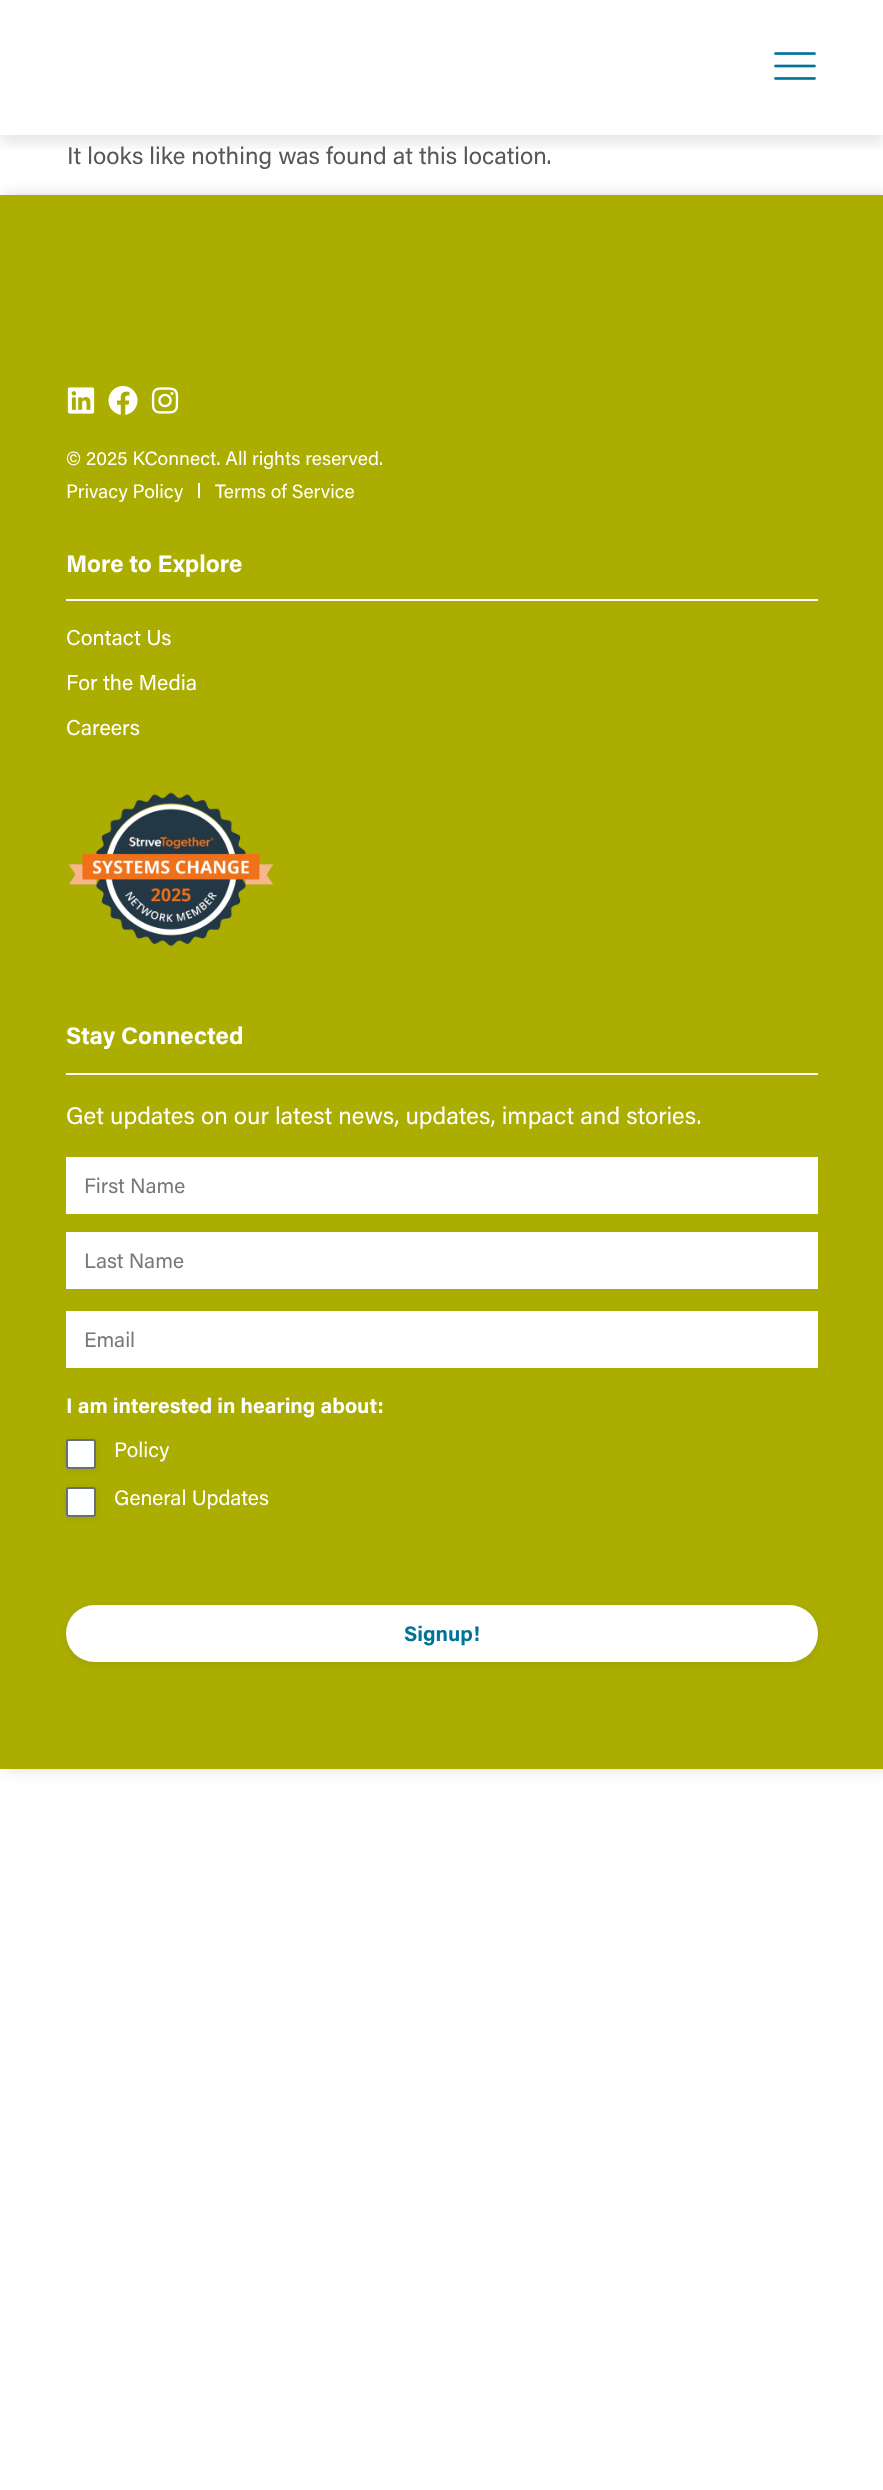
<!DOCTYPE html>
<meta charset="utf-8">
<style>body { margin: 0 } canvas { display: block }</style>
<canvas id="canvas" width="883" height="2490"></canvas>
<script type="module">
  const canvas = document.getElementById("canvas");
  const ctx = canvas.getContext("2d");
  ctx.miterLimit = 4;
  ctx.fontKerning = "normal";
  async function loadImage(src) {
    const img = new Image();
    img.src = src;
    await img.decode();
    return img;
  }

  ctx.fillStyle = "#ffffff";
  ctx.fillRect(0, 0, 883, 2490);
  ctx.save();
  ctx.beginPath();
  ctx.rect(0, 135, 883, 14);
  ctx.clip();
  ctx.fillStyle = "rgba(0, 0, 0, 0.1)";
  ctx.filter = "blur(7.5px)";
  ctx.beginPath();
  ctx.rect(0, 8, 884, 135);
  ctx.fill();
  ctx.filter = "none";
  ctx.restore();
  ctx.drawImage(await loadImage("img1.png"), 774, 52, 42, 28);
  ctx.font = "24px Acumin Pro";
  ctx.fillStyle = "#54585a";
  ctx.fillText("It looks like nothing was found at this location.", 67, 164);
  ctx.fillStyle = "rgba(0, 0, 0, 0.15)";
  ctx.filter = "blur(7.5px)";
  ctx.beginPath();
  ctx.rect(6, 195, 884, 1574);
  ctx.fill();
  ctx.filter = "none";
  ctx.fillStyle = "#abad00";
  ctx.fillRect(0, 195, 883, 1574);
  ctx.drawImage(await loadImage("img2.png"), 67, 387, 28, 27);
  ctx.drawImage(await loadImage("img3.png"), 108, 386, 30, 29);
  ctx.drawImage(await loadImage("img4.png"), 151, 387, 28, 27);
  ctx.font = "19.25px Acumin Pro";
  ctx.fillStyle = "#ffffff";
  ctx.fillText("© 2025 KConnect. All rights reserved.", 66, 465);
  ctx.fillText("Privacy Policy", 66, 498);
  ctx.fillRect(198, 483, 2, 15);
  ctx.fillText("Terms of Service", 215, 498);
  ctx.font = "bold 24px Acumin Pro";
  ctx.fillText("More to Explore", 66, 572);
  ctx.fillRect(66, 599, 752, 2);
  ctx.font = "21.5px Acumin Pro";
  ctx.fillText("Contact Us", 66, 645);
  ctx.fillText("For the Media", 66, 690);
  ctx.fillText("Careers", 66, 735);
  ctx.drawImage(await loadImage("img5.png"), 68, 792, 206, 154);
  ctx.font = "bold 24px Acumin Pro";
  ctx.fillText("Stay Connected", 66, 1044);
  ctx.fillRect(66, 1073, 752, 2);
  ctx.font = "24px Acumin Pro";
  ctx.fillText("Get updates on our latest news, updates, impact and stories.", 66, 1124);
  ctx.fillRect(66, 1157, 752, 57);
  ctx.font = "21px Acumin Pro";
  ctx.fillStyle = "#76797b";
  ctx.fillText("First Name", 84, 1193);
  ctx.fillStyle = "#ffffff";
  ctx.fillRect(66, 1232, 752, 57);
  ctx.fillStyle = "#76797b";
  ctx.fillText("Last Name", 84, 1268);
  ctx.fillStyle = "#ffffff";
  ctx.fillRect(66, 1311, 752, 57);
  ctx.fillStyle = "#76797b";
  ctx.fillText("Email", 84, 1347);
  ctx.font = "bold 21px Acumin Pro";
  ctx.fillStyle = "#ffffff";
  ctx.fillText("I am interested in hearing about:", 66, 1413);
  ctx.fillStyle = "rgba(18, 25, 97, 0.08)";
  ctx.filter = "blur(3px)";
  ctx.beginPath();
  ctx.roundRect(66, 1440, 30, 30, 3);
  ctx.fill();
  ctx.filter = "none";
  ctx.fillStyle = "#ffffff";
  ctx.beginPath();
  ctx.roundRect(67, 1440, 28, 28, 2);
  ctx.fill();
  ctx.strokeStyle = "#686e77";
  ctx.lineWidth = 2;
  ctx.stroke();
  ctx.font = "21px Acumin Pro";
  ctx.fillText("Policy", 114, 1457);
  ctx.fillStyle = "rgba(18, 25, 97, 0.08)";
  ctx.filter = "blur(3px)";
  ctx.beginPath();
  ctx.roundRect(66, 1488, 30, 30, 3);
  ctx.fill();
  ctx.filter = "none";
  ctx.fillStyle = "#ffffff";
  ctx.beginPath();
  ctx.roundRect(67, 1488, 28, 28, 2);
  ctx.fill();
  ctx.stroke();
  ctx.fillText("General Updates", 114, 1505);
  ctx.fillStyle = "rgba(18, 25, 97, 0.08)";
  ctx.filter = "blur(3px)";
  ctx.beginPath();
  ctx.roundRect(66, 1607, 752, 57, 28.5);
  ctx.fill();
  ctx.filter = "none";
  ctx.fillStyle = "#ffffff";
  ctx.beginPath();
  ctx.roundRect(66, 1605, 752, 57, 28.5);
  ctx.fill();
  ctx.font = "bold 21px Acumin Pro";
  ctx.fillStyle = "#007398";
  ctx.fillText("Signup!", 404, 1641);
</script>
